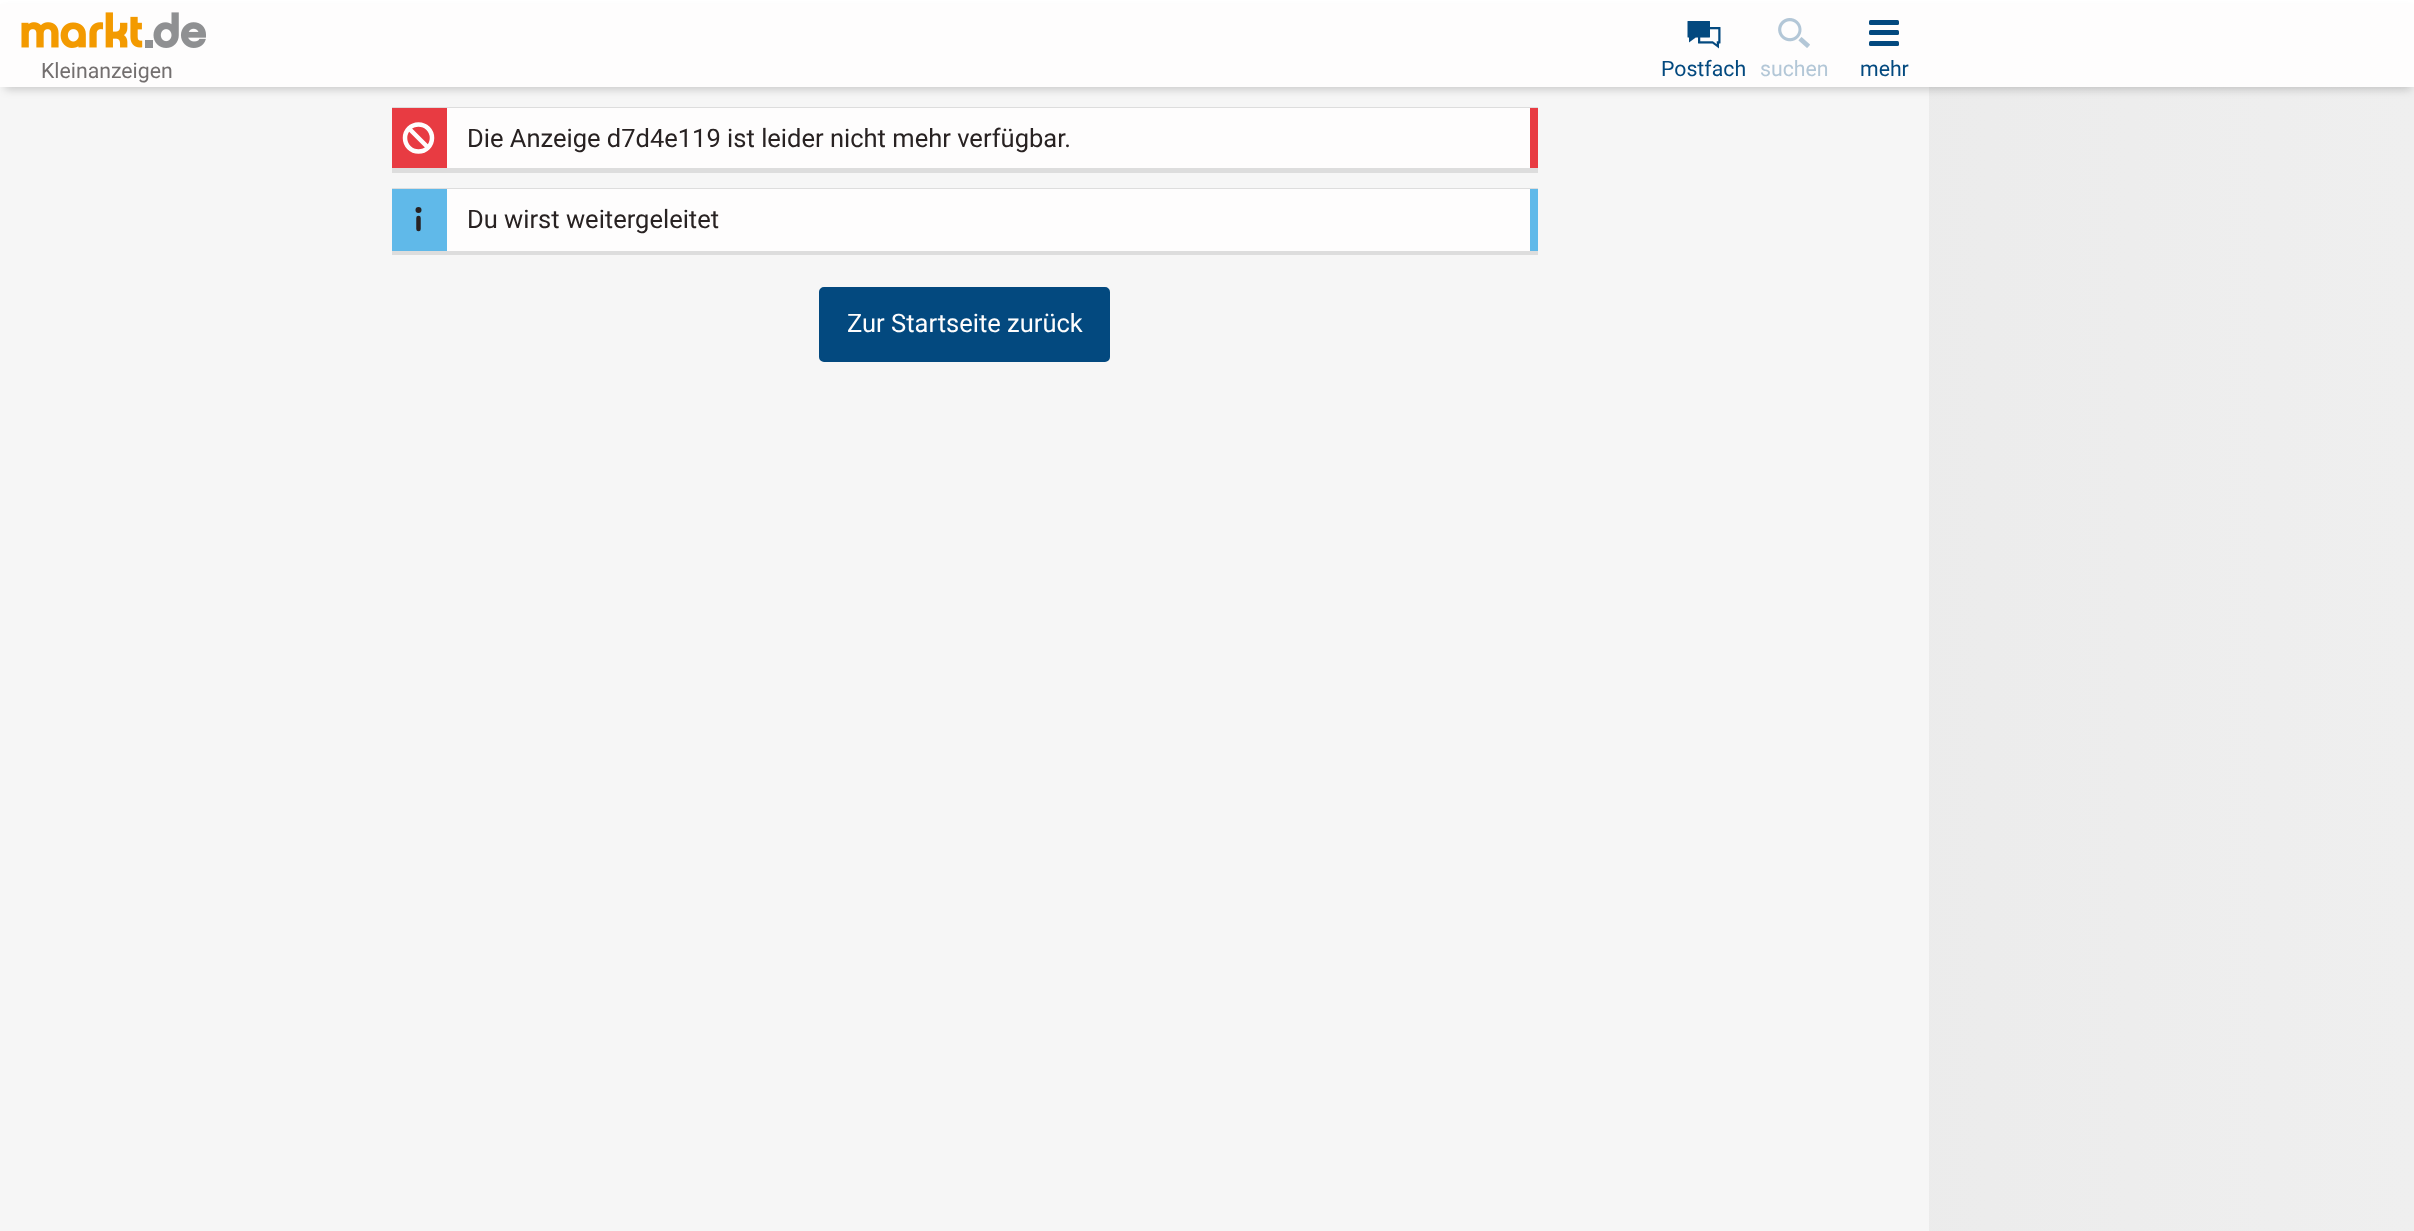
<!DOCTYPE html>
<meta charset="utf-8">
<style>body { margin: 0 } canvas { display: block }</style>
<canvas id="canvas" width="2414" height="1231"></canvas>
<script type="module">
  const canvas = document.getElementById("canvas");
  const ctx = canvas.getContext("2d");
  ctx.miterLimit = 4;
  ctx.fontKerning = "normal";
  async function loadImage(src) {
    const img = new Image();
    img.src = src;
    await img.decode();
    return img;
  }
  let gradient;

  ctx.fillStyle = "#ffffff";
  ctx.fillRect(0, 0, 2414, 1231);
  gradient = ctx.createLinearGradient(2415, 616, 0, 616);
  gradient.addColorStop(0, "#efefef");
  gradient.addColorStop(1, "#dedede");
  ctx.fillStyle = gradient;
  ctx.fillRect(1929, 87, 485, 1144);
  ctx.fillStyle = "#f6f6f6";
  ctx.fillRect(0, 87, 1929, 1144);
  ctx.fillStyle = "rgba(0, 0, 0, 0.2)";
  ctx.filter = "blur(5px)";
  ctx.beginPath();
  ctx.rect(5, 11, 2406, 78);
  ctx.fill();
  ctx.filter = "none";
  ctx.fillStyle = "#fefdfd";
  ctx.fillRect(0, 4, 2414, 83);
  ctx.drawImage(await loadImage("img1.png"), 21, 12, 185, 36);
  ctx.font = "21.25px Roboto";
  ctx.fillStyle = "#736f6f";
  ctx.fillText("Kleinanzeigen", 41, 78);
  ctx.drawImage(await loadImage("img2.png"), 1687, 21, 34, 28);
  ctx.fillStyle = "#03497f";
  ctx.fillText("Postfach", 1661, 76);
  ctx.drawImage(await loadImage("img3.png"), 1778, 18, 32, 30);
  ctx.fillStyle = "#b3c7d7";
  ctx.fillText("suchen", 1760, 76);
  ctx.fillStyle = "#03497f";
  ctx.beginPath();
  ctx.roundRect(1869, 20, 30, 5, 1.5);
  ctx.fill();
  ctx.beginPath();
  ctx.roundRect(1869, 30, 30, 5, 1.5);
  ctx.fill();
  ctx.beginPath();
  ctx.roundRect(1869, 41, 30, 5, 1.5);
  ctx.fill();
  ctx.fillText("mehr", 1860, 76);
  ctx.fillStyle = "#dddddd";
  ctx.beginPath();
  ctx.moveTo(392, 168);
  ctx.lineTo(392, 173);
  ctx.lineTo(1538, 173);
  ctx.lineTo(1538, 113);
  ctx.lineTo(1538, 168);
  ctx.closePath();
  ctx.fill();
  ctx.beginPath();
  ctx.moveTo(392, 107);
  ctx.lineTo(392, 108);
  ctx.lineTo(1538, 108);
  ctx.lineTo(1538, 167);
  ctx.lineTo(1538, 107);
  ctx.closePath();
  ctx.fill();
  ctx.fillStyle = "#fefdfd";
  ctx.fillRect(447, 108, 1083, 60);
  ctx.fillStyle = "#e83b42";
  ctx.fillRect(1530, 108, 8, 60);
  ctx.fillRect(392, 108, 55, 60);
  ctx.beginPath();
  ctx.arc(418.5, 138, 13.5, 0, Math.PI * 2);
  ctx.strokeStyle = "#fefdfd";
  ctx.lineWidth = 4.5;
  ctx.stroke();
  ctx.beginPath();
  ctx.moveTo(409.5, 129);
  ctx.lineTo(427.5, 147);
  ctx.lineCap = "round";
  ctx.lineJoin = "round";
  ctx.stroke();
  ctx.font = "25.5px Roboto";
  ctx.fillStyle = "#282222";
  ctx.fillText("Die Anzeige d7d4e119 ist leider nicht mehr verfügbar.", 467, 147);
  ctx.fillStyle = "#dddddd";
  ctx.beginPath();
  ctx.moveTo(392, 250);
  ctx.lineTo(392, 255);
  ctx.lineTo(1538, 255);
  ctx.lineTo(1538, 194);
  ctx.lineTo(1538, 250);
  ctx.closePath();
  ctx.fill();
  ctx.beginPath();
  ctx.moveTo(392, 188);
  ctx.lineTo(392, 189);
  ctx.lineTo(1538, 189);
  ctx.lineTo(1538, 249);
  ctx.lineTo(1538, 188);
  ctx.closePath();
  ctx.fill();
  ctx.fillStyle = "#fefdfd";
  ctx.fillRect(447, 189, 1083, 62);
  ctx.fillStyle = "#60b9e9";
  ctx.fillRect(1530, 189, 8, 62);
  ctx.fillRect(392, 189, 55, 62);
  ctx.beginPath();
  ctx.moveTo(418.5, 218);
  ctx.lineTo(418.5, 229);
  ctx.strokeStyle = "#282222";
  ctx.stroke();
  ctx.fillStyle = "#282222";
  ctx.beginPath();
  ctx.arc(418.5, 210, 3, 0, Math.PI * 2);
  ctx.fill();
  ctx.fillText("Du wirst weitergeleitet", 467, 228);
  ctx.fillStyle = "#03497f";
  ctx.beginPath();
  ctx.roundRect(820, 288, 289, 73, 4);
  ctx.fill();
  ctx.strokeStyle = "#03497f";
  ctx.lineWidth = 2;
  ctx.lineJoin = "miter";
  ctx.stroke();
  ctx.fillStyle = "#fefdfd";
  ctx.fillText("Zur Startseite zurück", 847, 332);
</script>
